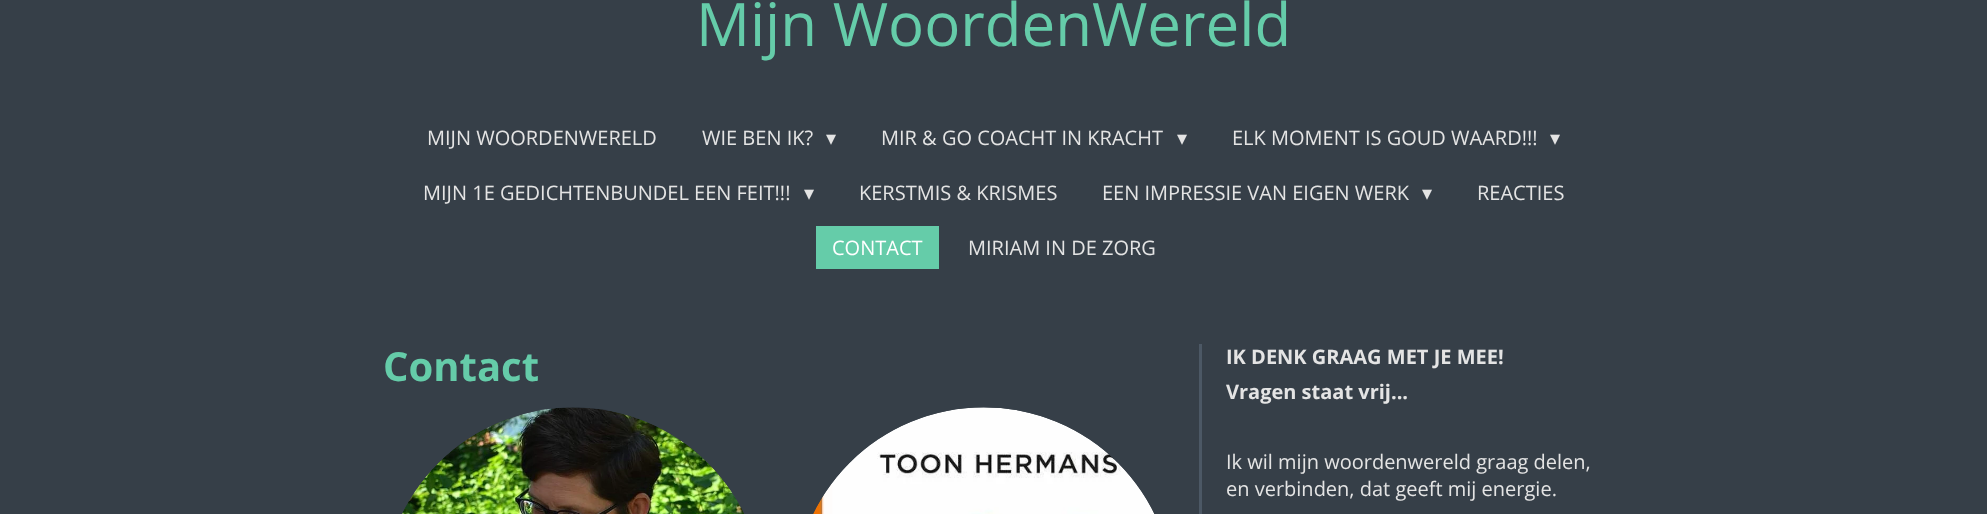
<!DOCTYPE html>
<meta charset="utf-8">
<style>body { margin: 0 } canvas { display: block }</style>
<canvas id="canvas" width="1987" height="514"></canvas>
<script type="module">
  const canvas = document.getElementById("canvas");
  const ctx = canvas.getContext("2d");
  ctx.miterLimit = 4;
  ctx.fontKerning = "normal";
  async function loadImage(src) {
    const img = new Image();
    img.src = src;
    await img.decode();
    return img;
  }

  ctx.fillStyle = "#363f48";
  ctx.fillRect(0, 0, 1987, 514);
  ctx.font = "60px Open Sans";
  ctx.fillStyle = "#65cca9";
  ctx.fillText("Mijn WoordenWereld", 696, 46);
  ctx.font = "20px Open Sans";
  ctx.fillStyle = "#e4e4e4";
  ctx.fillText("MIJN WOORDENWERELD", 427, 145);
  ctx.fillText("WIE BEN IK?", 702, 145);
  ctx.font = "20px DejaVu Sans";
  ctx.fillText("▾", 826, 145);
  ctx.font = "20px Open Sans";
  ctx.fillText("MIR & GO COACHT IN KRACHT", 881, 145);
  ctx.font = "20px DejaVu Sans";
  ctx.fillText("▾", 1177, 145);
  ctx.font = "20px Open Sans";
  ctx.fillText("ELK MOMENT IS GOUD WAARD!!!", 1232, 145);
  ctx.font = "20px DejaVu Sans";
  ctx.fillText("▾", 1550, 145);
  ctx.font = "20px Open Sans";
  ctx.fillText("MIJN 1E GEDICHTENBUNDEL EEN FEIT!!!", 423, 200);
  ctx.font = "20px DejaVu Sans";
  ctx.fillText("▾", 804, 200);
  ctx.font = "20px Open Sans";
  ctx.fillText("KERSTMIS & KRISMES", 859, 200);
  ctx.fillText("EEN IMPRESSIE VAN EIGEN WERK", 1102, 200);
  ctx.font = "20px DejaVu Sans";
  ctx.fillText("▾", 1422, 200);
  ctx.font = "20px Open Sans";
  ctx.fillText("REACTIES", 1477, 200);
  ctx.fillStyle = "#65cca9";
  ctx.fillRect(816, 226, 123, 43);
  ctx.fillStyle = "#ffffff";
  ctx.fillText("CONTACT", 832, 255);
  ctx.fillStyle = "#e4e4e4";
  ctx.fillText("MIRIAM IN DE ZORG", 968, 255);
  ctx.font = "bold 40px Open Sans";
  ctx.fillStyle = "#65cca9";
  ctx.fillText("Contact", 383, 381);
  ctx.drawImage(await loadImage("img1.png"), 402, 407, 342, 107);
  ctx.drawImage(await loadImage("img2.png"), 813, 407, 342, 107);
  ctx.fillStyle = "#4c5865";
  ctx.fillRect(1199, 344, 3, 170);
  ctx.font = "bold 20px Open Sans";
  ctx.fillStyle = "#e4e4e4";
  ctx.fillText("IK DENK GRAAG MET JE MEE!", 1226, 364);
  ctx.fillText("Vragen staat vrij...", 1226, 399);
  ctx.font = "20px Open Sans";
  ctx.fillText("Ik wil mijn woordenwereld graag delen,", 1226, 469);
  ctx.fillText("en verbinden, dat geeft mij energie.", 1226, 496);
</script>
